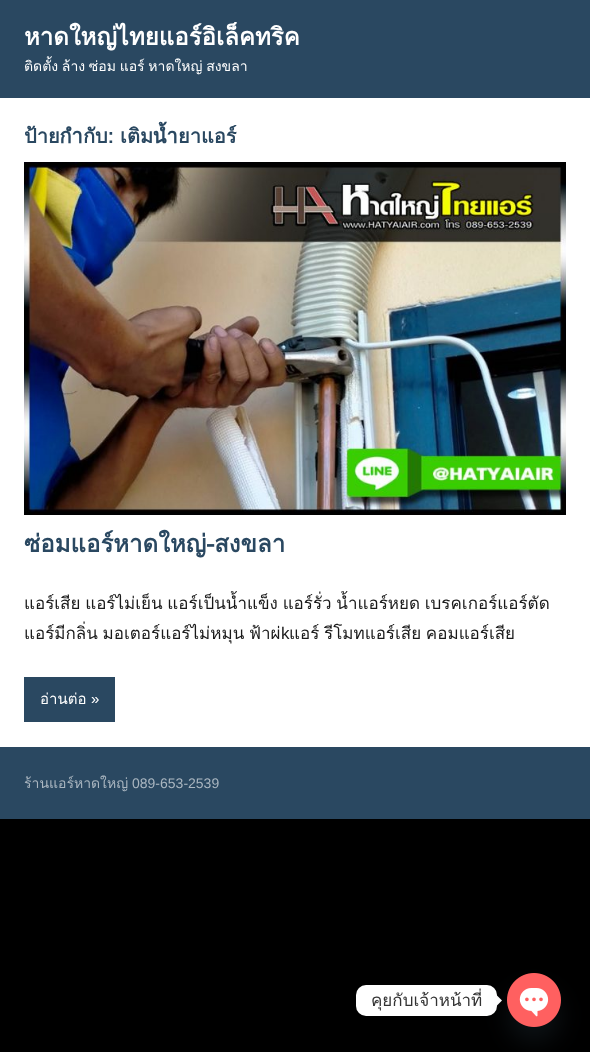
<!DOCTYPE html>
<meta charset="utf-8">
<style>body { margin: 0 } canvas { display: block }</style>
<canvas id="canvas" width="590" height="1052"></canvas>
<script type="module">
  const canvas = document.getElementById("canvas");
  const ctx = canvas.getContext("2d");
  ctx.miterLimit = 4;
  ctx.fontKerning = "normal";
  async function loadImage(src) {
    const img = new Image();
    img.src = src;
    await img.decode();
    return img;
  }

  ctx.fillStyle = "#000000";
  ctx.fillRect(0, 0, 590, 1052);
  ctx.fillStyle = "#2a4861";
  ctx.fillRect(0, 0, 590, 98);
  ctx.font = "bold 24px Loma";
  ctx.fillStyle = "#ffffff";
  ctx.fillText("หาดใหญ่ไทยแอร์อิเล็คทริค", 24, 45);
  ctx.wordSpacing = "-1px";
  ctx.font = "14px Loma";
  ctx.fillText("ติดตั้ง ล้าง ซ่อม แอร์ หาดใหญ่ สงขลา", 24, 71);
  ctx.fillRect(0, 98, 590, 649);
  ctx.wordSpacing = "0px";
  ctx.font = "bold 20px Loma";
  ctx.fillStyle = "#2a4861";
  ctx.fillText("ป้ายกำกับ: เติมน้ำยาแอร์", 24, 143);
  ctx.drawImage(await loadImage("img1.png"), 24, 162, 542, 353);
  ctx.font = "bold 24px Loma";
  ctx.fillText("ซ่อมแอร์หาดใหญ่-สงขลา", 24, 552);
  ctx.wordSpacing = "-1px";
  ctx.font = "17px Loma";
  ctx.fillStyle = "#1a1a1a";
  ctx.fillText("แอร์เสีย แอร์ไม่เย็น แอร์เป็นน้ำแข็ง แอร์รั่ว น้ำแอร์หยด เบรคเกอร์แอร์ตัด", 24, 609);
  ctx.fillText("แอร์มีกลิ่น มอเตอร์แอร์ไม่หมุน ฟ้าผ่", 24, 639);
  ctx.wordSpacing = "0px";
  ctx.font = "17px Liberation Sans";
  ctx.fillText("k", 281, 639);
  ctx.font = "17px Loma";
  ctx.fillText("แอร์", 289, 639);
  ctx.wordSpacing = "-1px";
  ctx.fillText("รีโมทแอร์เสีย คอมแอร์เสีย", 324, 639);
  ctx.fillStyle = "#2a4861";
  ctx.fillRect(24, 677, 91, 45);
  ctx.wordSpacing = "0px";
  ctx.font = "15px Loma";
  ctx.fillStyle = "#ffffff";
  ctx.fillText("อ่านต่อ", 40, 704);
  ctx.font = "15px Liberation Sans";
  ctx.fillText("»", 91, 704);
  ctx.fillStyle = "#2a4861";
  ctx.fillRect(0, 747, 590, 72);
  ctx.font = "14px Loma";
  ctx.fillStyle = "#aab6c0";
  ctx.fillText("ร้านแอร์หาดใหญ่", 24, 788);
  ctx.font = "14px Liberation Sans";
  ctx.fillText("089-653-2539", 132, 788);
  ctx.fillStyle = "#ffffff";
  ctx.beginPath();
  ctx.roundRect(356, 985, 141, 31, 10);
  ctx.fill();
  ctx.font = "17px Loma";
  ctx.fillStyle = "#333333";
  ctx.fillText("คุยกับเจ้าหน้าที่", 371, 1006);
  ctx.fillStyle = "#ffffff";
  ctx.beginPath();
  ctx.moveTo(497, 1005.5);
  ctx.lineTo(497, 995.5);
  ctx.lineTo(502, 1000.5);
  ctx.closePath();
  ctx.fill();
  ctx.fillStyle = "rgba(73, 104, 126, 0.16)";
  ctx.filter = "blur(12px)";
  ctx.beginPath();
  ctx.roundRect(507, 989, 54, 54, 27);
  ctx.fill();
  ctx.filter = "none";
  ctx.drawImage(await loadImage("img2.png"), 507, 973, 54, 54);
</script>
